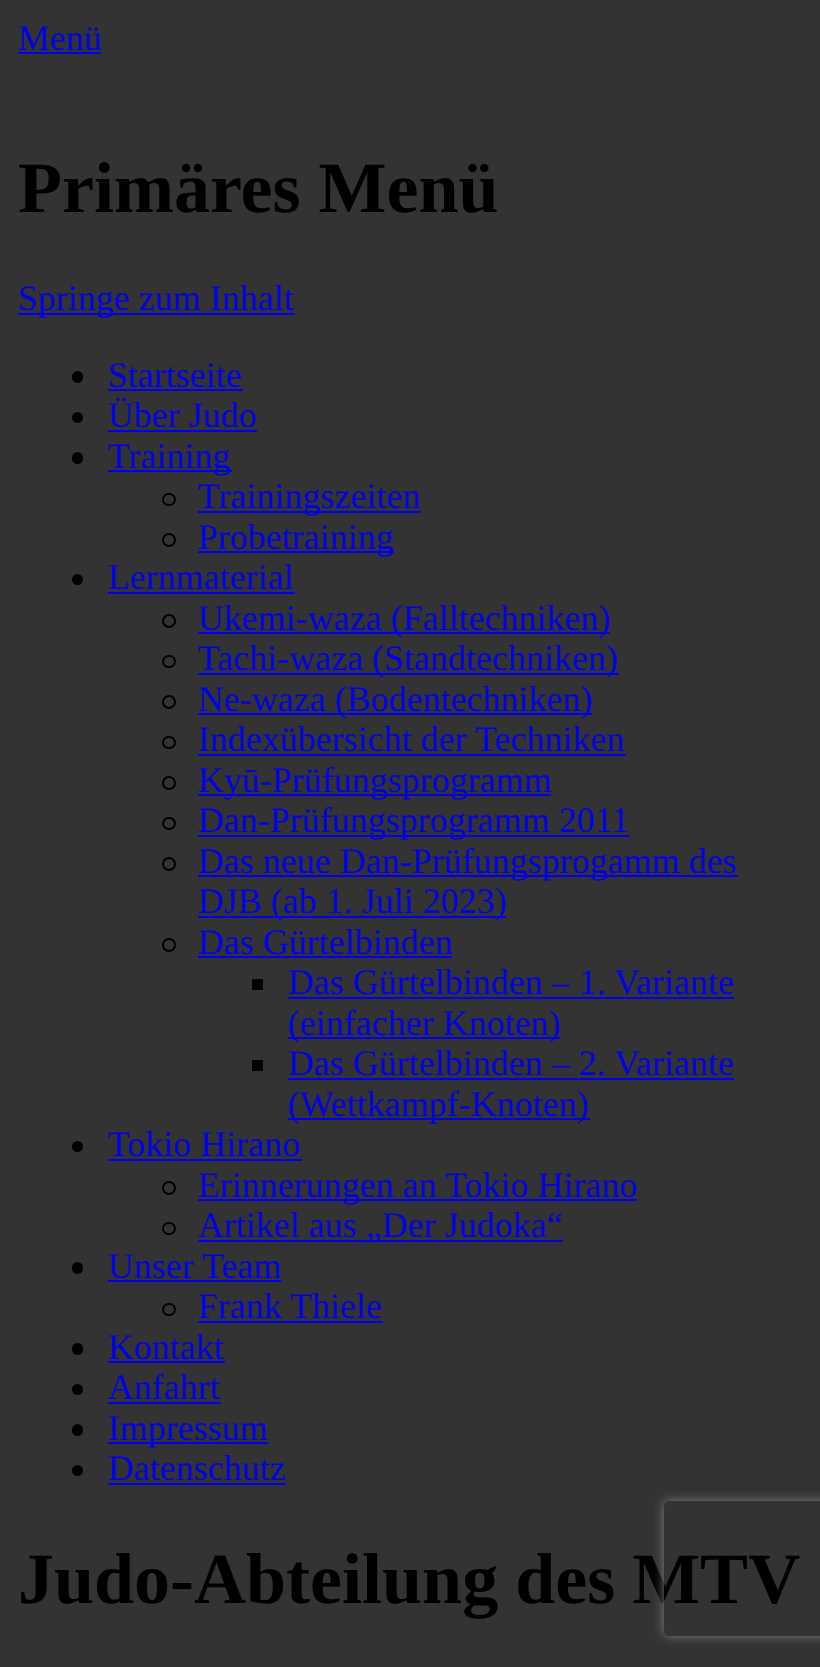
<!DOCTYPE html>
<meta charset="utf-8">
<style>body { margin: 0 } canvas { display: block }</style>
<canvas id="canvas" width="820" height="1667"></canvas>
<script type="module">
  const canvas = document.getElementById("canvas");
  const ctx = canvas.getContext("2d");
  ctx.miterLimit = 4;
  ctx.fontKerning = "normal";

  ctx.fillStyle = "#333333";
  ctx.fillRect(0, 0, 820, 1667);
  ctx.font = "36px Liberation Serif";
  ctx.fillStyle = "#0000ee";
  ctx.fillText("Menü", 18, 50);
  ctx.fillRect(18, 52, 83, 2);
  ctx.font = "bold 72px Liberation Serif";
  ctx.fillStyle = "#000000";
  ctx.fillText("Primäres Menü", 18, 212);
  ctx.fillStyle = "#0000ee";
  ctx.fillRect(18, 313, 277, 2);
  ctx.font = "36px Liberation Serif";
  ctx.fillText("Springe zum Inhalt", 18, 310);
  ctx.fillStyle = "#000000";
  ctx.beginPath();
  ctx.roundRect(72, 371, 11, 12, 5.5);
  ctx.fill();
  ctx.fillStyle = "#0000ee";
  ctx.fillText("Startseite", 108, 387);
  ctx.fillRect(108, 389, 135, 2);
  ctx.fillStyle = "#000000";
  ctx.beginPath();
  ctx.arc(77.5, 417.5, 5.5, 0, Math.PI * 2);
  ctx.fill();
  ctx.fillStyle = "#0000ee";
  ctx.fillText("Über Judo", 108, 427);
  ctx.fillRect(108, 430, 149, 2);
  ctx.fillStyle = "#000000";
  ctx.beginPath();
  ctx.roundRect(72, 452, 11, 12, 5.5);
  ctx.fill();
  ctx.fillStyle = "#0000ee";
  ctx.fillRect(108, 470, 124, 2);
  ctx.fillText("Training", 108, 468);
  ctx.beginPath();
  ctx.roundRect(163, 494, 12, 11, 5.5);
  ctx.strokeStyle = "#000000";
  ctx.lineWidth = 2;
  ctx.stroke();
  ctx.fillRect(198, 511, 223, 2);
  ctx.fillText("Trainingszeiten", 198, 508);
  ctx.beginPath();
  ctx.arc(169, 540, 6, 0, Math.PI * 2);
  ctx.stroke();
  ctx.fillRect(198, 551, 196, 2);
  ctx.fillText("Probetraining", 198, 549);
  ctx.fillStyle = "#000000";
  ctx.beginPath();
  ctx.arc(77.5, 579.5, 5.5, 0, Math.PI * 2);
  ctx.fill();
  ctx.fillStyle = "#0000ee";
  ctx.fillText("Lernmaterial", 108, 589);
  ctx.fillRect(108, 592, 187, 2);
  ctx.beginPath();
  ctx.arc(169, 621, 6, 0, Math.PI * 2);
  ctx.stroke();
  ctx.fillRect(198, 632, 412, 2);
  ctx.fillText("Ukemi-waza (Falltechniken)", 198, 630);
  ctx.beginPath();
  ctx.roundRect(163, 656, 12, 11, 5.5);
  ctx.stroke();
  ctx.fillRect(198, 673, 421, 2);
  ctx.fillText("Tachi-waza (Standtechniken)", 198, 670);
  ctx.beginPath();
  ctx.arc(169, 702, 6, 0, Math.PI * 2);
  ctx.stroke();
  ctx.fillRect(198, 713, 394, 2);
  ctx.fillText("Ne-waza (Bodentechniken)", 198, 711);
  ctx.beginPath();
  ctx.roundRect(163, 737, 12, 11, 5.5);
  ctx.stroke();
  ctx.fillText("Indexübersicht der Techniken", 198, 751);
  ctx.fillRect(198, 754, 428, 2);
  ctx.beginPath();
  ctx.arc(169, 783, 6, 0, Math.PI * 2);
  ctx.stroke();
  ctx.fillRect(198, 794, 353, 2);
  ctx.fillText("Kyū-Prüfungsprogramm", 198, 792);
  ctx.beginPath();
  ctx.roundRect(163, 818, 12, 11, 5.5);
  ctx.stroke();
  ctx.fillRect(198, 835, 432, 2);
  ctx.fillText("Dan-Prüfungsprogramm 2011", 198, 832);
  ctx.beginPath();
  ctx.arc(169, 864, 6, 0, Math.PI * 2);
  ctx.stroke();
  ctx.fillRect(198, 875, 540, 2);
  ctx.fillText("Das neue Dan-Prüfungsprogamm des", 198, 873);
  ctx.fillRect(198, 916, 308, 2);
  ctx.fillText("DJB (ab 1. Juli 2023)", 198, 913);
  ctx.beginPath();
  ctx.arc(169, 945, 6, 0, Math.PI * 2);
  ctx.stroke();
  ctx.fillText("Das Gürtelbinden", 198, 954);
  ctx.fillRect(198, 956, 254, 2);
  ctx.fillStyle = "#000000";
  ctx.fillRect(252, 979, 11, 11);
  ctx.fillStyle = "#0000ee";
  ctx.fillText("Das Gürtelbinden – 1. Variante", 288, 994);
  ctx.fillRect(288, 997, 446, 2);
  ctx.fillRect(288, 1037, 272, 2);
  ctx.fillText("(einfacher Knoten)", 288, 1035);
  ctx.fillStyle = "#000000";
  ctx.fillRect(252, 1060, 11, 11);
  ctx.fillStyle = "#0000ee";
  ctx.fillText("Das Gürtelbinden – 2. Variante", 288, 1075);
  ctx.fillRect(288, 1078, 446, 2);
  ctx.fillRect(288, 1118, 302, 2);
  ctx.fillText("(Wettkampf-Knoten)", 288, 1116);
  ctx.fillStyle = "#000000";
  ctx.beginPath();
  ctx.arc(77.5, 1146.5, 5.5, 0, Math.PI * 2);
  ctx.fill();
  ctx.fillStyle = "#0000ee";
  ctx.fillText("Tokio Hirano", 108, 1156);
  ctx.fillRect(108, 1159, 194, 2);
  ctx.beginPath();
  ctx.arc(169, 1188, 6, 0, Math.PI * 2);
  ctx.stroke();
  ctx.fillRect(198, 1199, 439, 2);
  ctx.fillText("Erinnerungen an Tokio Hirano", 198, 1197);
  ctx.beginPath();
  ctx.roundRect(163, 1223, 12, 11, 5.5);
  ctx.stroke();
  ctx.fillRect(198, 1240, 365, 2);
  ctx.fillText("Artikel aus „Der Judoka“", 198, 1237);
  ctx.fillStyle = "#000000";
  ctx.beginPath();
  ctx.roundRect(72, 1262, 11, 12, 5.5);
  ctx.fill();
  ctx.fillStyle = "#0000ee";
  ctx.fillText("Unser Team", 108, 1278);
  ctx.fillRect(108, 1280, 173, 2);
  ctx.beginPath();
  ctx.roundRect(163, 1304, 12, 11, 5.5);
  ctx.stroke();
  ctx.fillText("Frank Thiele", 198, 1318);
  ctx.fillRect(198, 1321, 185, 2);
  ctx.fillStyle = "#000000";
  ctx.beginPath();
  ctx.roundRect(72, 1343, 11, 12, 5.5);
  ctx.fill();
  ctx.fillStyle = "#0000ee";
  ctx.fillText("Kontakt", 108, 1359);
  ctx.fillRect(108, 1361, 117, 2);
  ctx.fillStyle = "#000000";
  ctx.beginPath();
  ctx.arc(77.5, 1389.5, 5.5, 0, Math.PI * 2);
  ctx.fill();
  ctx.fillStyle = "#0000ee";
  ctx.fillText("Anfahrt", 108, 1399);
  ctx.fillRect(108, 1402, 113, 2);
  ctx.fillStyle = "#000000";
  ctx.beginPath();
  ctx.roundRect(72, 1424, 11, 12, 5.5);
  ctx.fill();
  ctx.fillStyle = "#0000ee";
  ctx.fillRect(108, 1442, 160, 2);
  ctx.fillText("Impressum", 108, 1440);
  ctx.fillStyle = "#000000";
  ctx.beginPath();
  ctx.arc(77.5, 1470.5, 5.5, 0, Math.PI * 2);
  ctx.fill();
  ctx.fillStyle = "#0000ee";
  ctx.fillText("Datenschutz", 108, 1480);
  ctx.fillRect(108, 1483, 178, 2);
  ctx.wordSpacing = "-1px";
  ctx.font = "bold 72px Liberation Serif";
  ctx.fillStyle = "#000000";
  ctx.fillText("Judo-Abteilung des MTV", 18, 1603);
  ctx.save();
  ctx.beginPath();
  ctx.moveTo(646, 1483);
  ctx.lineTo(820, 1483);
  ctx.lineTo(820, 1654);
  ctx.lineTo(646, 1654);
  ctx.closePath();
  ctx.moveTo(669, 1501);
  ctx.lineTo(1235, 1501);
  ctx.bezierCurveTo(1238, 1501, 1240, 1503, 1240, 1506);
  ctx.lineTo(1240, 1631);
  ctx.bezierCurveTo(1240, 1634, 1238, 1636, 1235, 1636);
  ctx.lineTo(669, 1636);
  ctx.bezierCurveTo(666, 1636, 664, 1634, 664, 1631);
  ctx.lineTo(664, 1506);
  ctx.bezierCurveTo(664, 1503, 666, 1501, 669, 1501);
  ctx.closePath();
  ctx.clip("evenodd");
  ctx.fillStyle = "#808080";
  ctx.filter = "blur(5.5px)";
  ctx.beginPath();
  ctx.roundRect(664, 1501, 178, 135, 5);
  ctx.fill();
  ctx.filter = "none";
  ctx.restore();
</script>
